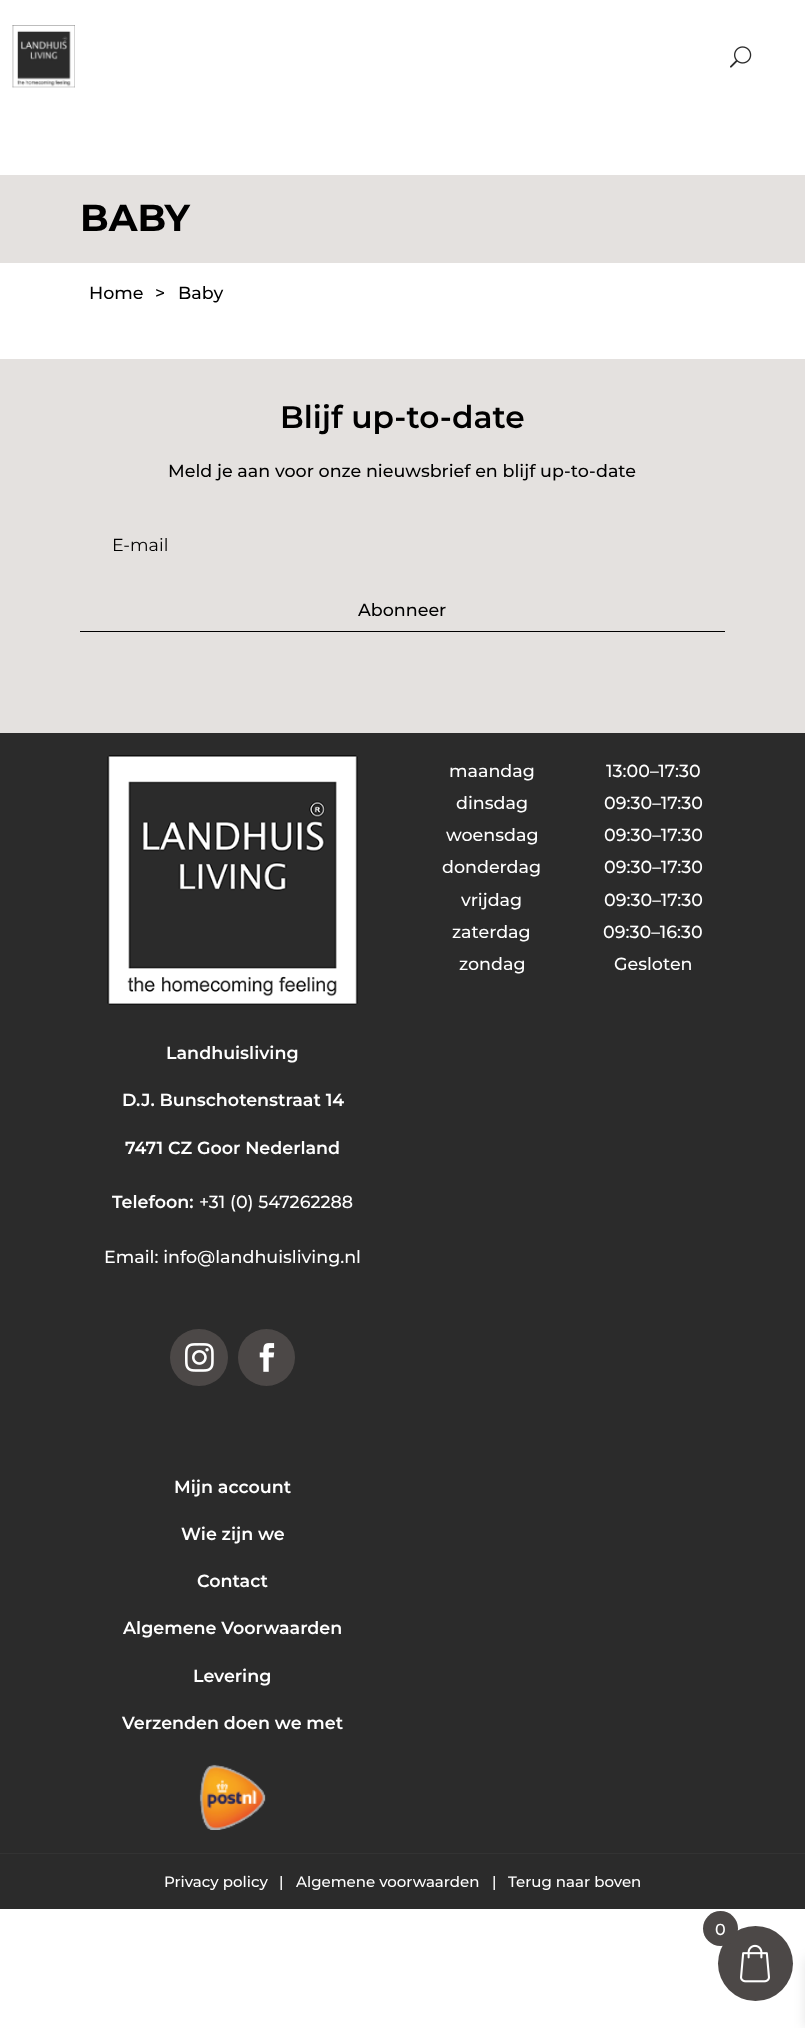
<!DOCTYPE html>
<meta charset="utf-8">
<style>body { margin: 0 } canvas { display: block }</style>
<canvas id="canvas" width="805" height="2028"></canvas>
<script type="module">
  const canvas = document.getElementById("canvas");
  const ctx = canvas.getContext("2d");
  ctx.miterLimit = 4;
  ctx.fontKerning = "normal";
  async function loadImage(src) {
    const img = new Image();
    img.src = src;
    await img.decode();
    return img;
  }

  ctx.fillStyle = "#ffffff";
  ctx.fillRect(0, 0, 805, 2028);
  ctx.drawImage(await loadImage("img1.png"), 12, 25, 63, 63);
  ctx.drawImage(await loadImage("img2.png"), 730, 46, 22, 22);
  ctx.fillStyle = "#e4e1df";
  ctx.fillRect(0, 175, 805, 88);
  ctx.font = "100 37.5px Montserrat";
  ctx.fillStyle = "#000000";
  ctx.fillText("BABY", 80, 231);
  ctx.font = "100 17.5px 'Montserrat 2'";
  ctx.fillText("Home", 89, 299);
  ctx.fillText(">", 155, 299);
  ctx.fillText("Baby", 178, 299);
  ctx.fillStyle = "#e4e1df";
  ctx.fillRect(0, 359, 805, 374);
  ctx.fillStyle = "#000000";
  ctx.fillRect(80, 631, 645, 1);
  ctx.font = "100 31.25px 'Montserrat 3'";
  ctx.fillText("Blijf up-to-date", 280, 428);
  ctx.font = "100 17.5px 'Montserrat 2'";
  ctx.fillText("Meld je aan voor onze nieuwsbrief en blijf up-to-date", 168, 477);
  ctx.font = "100 17.5px 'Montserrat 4'";
  ctx.fillText("E-mail", 112, 551);
  ctx.font = "100 17.5px 'Montserrat 2'";
  ctx.fillText("Abonneer", 358, 616);
  ctx.fillStyle = "#2b2b2b";
  ctx.fillRect(0, 733, 805, 1120);
  ctx.fillStyle = "#ffffff";
  ctx.fillText("maandag", 449, 777);
  ctx.fillText("13:00–17:30", 606, 777);
  ctx.fillText("dinsdag", 456, 809);
  ctx.fillText("09:30–17:30", 604, 809);
  ctx.fillText("woensdag", 446, 841);
  ctx.fillText("09:30–17:30", 604, 841);
  ctx.fillText("donderdag", 442, 873);
  ctx.fillText("09:30–17:30", 604, 873);
  ctx.fillText("vrijdag", 461, 906);
  ctx.fillText("09:30–17:30", 604, 906);
  ctx.fillText("zaterdag", 452, 938);
  ctx.fillText("09:30–16:30", 603, 938);
  ctx.fillText("zondag", 459, 970);
  ctx.fillText("Gesloten", 614, 970);
  ctx.drawImage(await loadImage("img3.png"), 107, 755, 251, 250);
  ctx.font = "100 17.5px 'Montserrat 3'";
  ctx.fillText("Landhuisliving", 166, 1059);
  ctx.fillText("D.J. Bunschotenstraat 14", 122, 1106);
  ctx.fillText("7471 CZ Goor Nederland", 125, 1154);
  ctx.fillText("Telefoon:", 112, 1208);
  ctx.font = "100 17.5px 'Montserrat 2'";
  ctx.fillText("+31 (0) 547262288", 199, 1208);
  ctx.fillText("Email: info@landhuisliving.nl", 104, 1263);
  ctx.fillStyle = "#4c4847";
  ctx.beginPath();
  ctx.roundRect(170, 1329, 58, 57, 28.5);
  ctx.fill();
  ctx.drawImage(await loadImage("img4.png"), 185, 1343, 29, 29);
  ctx.beginPath();
  ctx.arc(266.5, 1357.5, 28.5, 0, Math.PI * 2);
  ctx.fill();
  ctx.drawImage(await loadImage("img5.png"), 259, 1343, 16, 29);
  ctx.font = "100 17.5px 'Montserrat 3'";
  ctx.fillStyle = "#ffffff";
  ctx.fillText("Mijn account", 174, 1493);
  ctx.fillText("Wie zijn we", 181, 1540);
  ctx.fillText("Contact", 197, 1587);
  ctx.fillText("Algemene Voorwaarden", 123, 1634);
  ctx.fillText("Levering", 193, 1682);
  ctx.fillText("Verzenden doen we met", 122, 1729);
  ctx.drawImage(await loadImage("img6.png"), 199, 1764, 67, 66);
  ctx.fillStyle = "#2b2b2b";
  ctx.fillRect(0, 1854, 805, 55);
  ctx.fillStyle = "#333333";
  ctx.fillRect(0, 1853, 805, 1);
  ctx.font = "100 15px 'Montserrat 2'";
  ctx.fillStyle = "#ffffff";
  ctx.fillText("Privacy policy", 164, 1887);
  ctx.fillText("|", 279, 1887);
  ctx.fillText("Algemene voorwaarden", 296, 1887);
  ctx.fillText("|", 492, 1887);
  ctx.fillText("Terug naar boven", 508, 1887);
  ctx.fillStyle = "rgba(0, 0, 0, 0.1)";
  ctx.filter = "blur(6px)";
  ctx.beginPath();
  ctx.rect(805, 1958, 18, 70);
  ctx.fill();
  ctx.filter = "none";
  ctx.fillStyle = "#4c4847";
  ctx.beginPath();
  ctx.arc(755.5, 1963.5, 37.5, 0, Math.PI * 2);
  ctx.fill();
  ctx.beginPath();
  ctx.arc(720.5, 1928.5, 17.5, 0, Math.PI * 2);
  ctx.fill();
  ctx.font = "100 16px 'Montserrat 2'";
  ctx.fillStyle = "#ffffff";
  ctx.fillText("0", 715, 1935);
  ctx.drawImage(await loadImage("img7.png"), 740, 1944, 30, 39);
</script>
